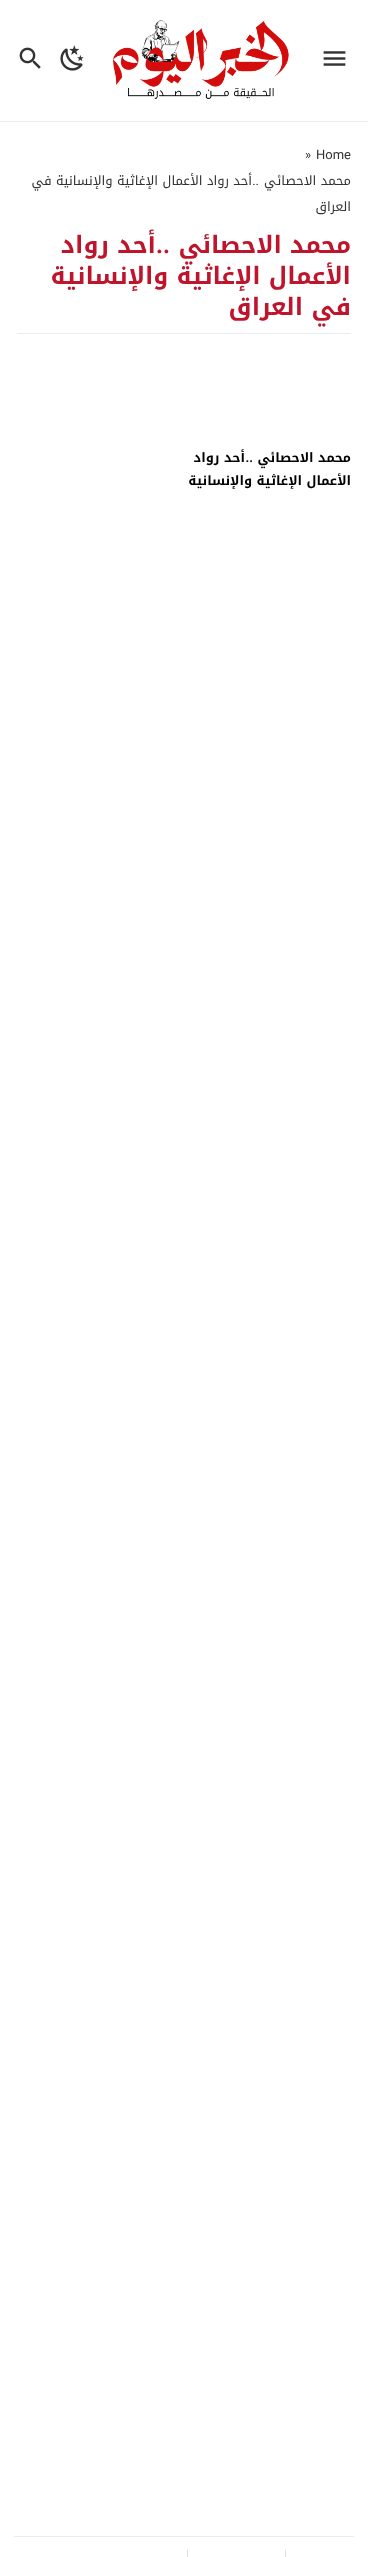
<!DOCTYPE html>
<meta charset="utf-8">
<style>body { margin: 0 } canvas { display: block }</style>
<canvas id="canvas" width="368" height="2557"></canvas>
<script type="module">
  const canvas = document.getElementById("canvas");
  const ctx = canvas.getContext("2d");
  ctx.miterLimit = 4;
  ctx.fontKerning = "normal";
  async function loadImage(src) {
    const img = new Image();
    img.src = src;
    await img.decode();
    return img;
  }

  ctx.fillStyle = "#ffffff";
  ctx.fillRect(0, 0, 368, 2557);
  ctx.fillStyle = "#e9edf0";
  ctx.fillRect(0, 121, 368, 1);
  ctx.drawImage(await loadImage("img1.png"), 323, 51, 23, 15);
  ctx.drawImage(await loadImage("img2.png"), 113, 20, 176, 79);
  ctx.drawImage(await loadImage("img3.png"), 60, 45, 24, 26);
  ctx.drawImage(await loadImage("img4.png"), 19, 47, 22, 22);
  ctx.font = "13px Roboto";
  ctx.fillStyle = "#333333";
  ctx.fillText("Home", 316, 159);
  ctx.fillText("»", 305, 159);
  ctx.direction = "rtl";
  ctx.font = "13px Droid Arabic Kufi";
  ctx.fillText("محمد الاحصائي", 351, 185);
  ctx.font = "13px Roboto";
  ctx.fillText("..", 259, 185);
  ctx.font = "13px Droid Arabic Kufi";
  ctx.fillText("أحد رواد الأعمال الإغاثية والإنسانية في", 252, 185);
  ctx.fillText("العراق", 351, 211);
  ctx.fillStyle = "#e9edf0";
  ctx.fillRect(17, 333, 334, 1);
  ctx.font = "bold 24px Droid Arabic Kufi";
  ctx.fillStyle = "#bf152c";
  ctx.fillText("محمد الاحصائي", 351, 253);
  ctx.font = "bold 24px Roboto";
  ctx.fillText("..", 170, 253);
  ctx.font = "bold 24px Droid Arabic Kufi";
  ctx.fillText("أحد رواد", 156, 253);
  ctx.fillText("الأعمال الإغاثية والإنسانية", 351, 284);
  ctx.fillText("في العراق", 351, 315);
  ctx.font = "bold 13px Droid Arabic Kufi";
  ctx.fillStyle = "#000000";
  ctx.fillText("محمد الاحصائي", 351, 462);
  ctx.font = "bold 13px Roboto";
  ctx.fillText("..", 253, 462);
  ctx.font = "bold 13px Droid Arabic Kufi";
  ctx.fillText("أحد رواد", 245, 462);
  ctx.fillText("الأعمال الإغاثية والإنسانية", 351, 485);
  ctx.fillStyle = "#e9edf0";
  ctx.fillRect(14, 2536, 340, 1);
  ctx.direction = "ltr";
  ctx.font = "13px Roboto";
  ctx.fillStyle = "#dddddd";
  ctx.fillText("|", 284, 2559);
  ctx.fillText("|", 186, 2559);
</script>
